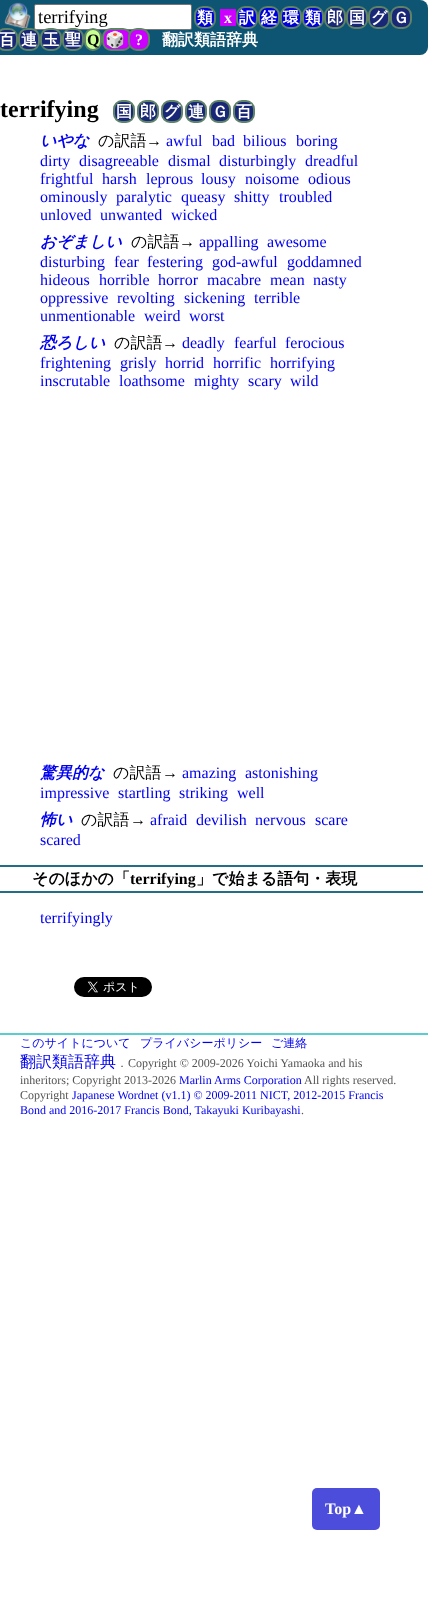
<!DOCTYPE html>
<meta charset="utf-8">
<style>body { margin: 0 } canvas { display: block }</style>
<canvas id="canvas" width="428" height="1610"></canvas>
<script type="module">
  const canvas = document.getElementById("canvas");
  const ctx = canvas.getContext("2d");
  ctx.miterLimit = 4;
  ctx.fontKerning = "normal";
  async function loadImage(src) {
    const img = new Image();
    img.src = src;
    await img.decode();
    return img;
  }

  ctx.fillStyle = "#ffffff";
  ctx.fillRect(0, 0, 428, 1610);
  ctx.fillStyle = "#0e5573";
  ctx.beginPath();
  ctx.roundRect(0, 0, 428, 55, [0, 8, 8, 0]);
  ctx.fill();
  ctx.drawImage(await loadImage("img1.png"), 4, 2, 27, 27);
  ctx.fillStyle = "#ffffff";
  ctx.beginPath();
  ctx.roundRect(34.5, 4.5, 157, 25, 1.5);
  ctx.fill();
  ctx.strokeStyle = "#767676";
  ctx.stroke();
  ctx.font = "18.5px Liberation Serif";
  ctx.fillStyle = "#000000";
  ctx.fillText("terrifying", 38, 23);
  ctx.fillStyle = "#0000dd";
  ctx.beginPath();
  ctx.roundRect(195, 7, 20, 21, 8);
  ctx.fill();
  ctx.strokeStyle = "#5e8367";
  ctx.lineWidth = 2;
  ctx.stroke();
  ctx.font = "bold 16px WenQuanYi Zen Hei";
  ctx.fillStyle = "#ffffff";
  ctx.fillText("類", 197, 23);
  ctx.fillStyle = "#cc00ff";
  ctx.fillRect(220, 9, 16, 17);
  ctx.font = "bold 16px Liberation Serif";
  ctx.fillStyle = "#ffffff";
  ctx.fillText("x", 224, 23);
  ctx.fillStyle = "#0000dd";
  ctx.beginPath();
  ctx.roundRect(237, 7, 20, 21, 8);
  ctx.fill();
  ctx.stroke();
  ctx.font = "bold 16px WenQuanYi Zen Hei";
  ctx.fillStyle = "#ffffff";
  ctx.fillText("訳", 239, 23);
  ctx.fillStyle = "#0000dd";
  ctx.beginPath();
  ctx.roundRect(259, 7, 20, 21, 8);
  ctx.fill();
  ctx.stroke();
  ctx.fillStyle = "#ffffff";
  ctx.fillText("経", 261, 23);
  ctx.fillStyle = "#0000dd";
  ctx.beginPath();
  ctx.roundRect(281, 7, 20, 21, 8);
  ctx.fill();
  ctx.stroke();
  ctx.fillStyle = "#ffffff";
  ctx.fillText("環", 283, 23);
  ctx.fillStyle = "#0000dd";
  ctx.beginPath();
  ctx.roundRect(303, 7, 20, 21, 8);
  ctx.fill();
  ctx.stroke();
  ctx.fillStyle = "#ffffff";
  ctx.fillText("類", 305, 23);
  ctx.fillStyle = "#192777";
  ctx.beginPath();
  ctx.roundRect(325, 7, 20, 21, 8);
  ctx.fill();
  ctx.stroke();
  ctx.fillStyle = "#ffffff";
  ctx.fillText("郎", 327, 23);
  ctx.fillStyle = "#192777";
  ctx.beginPath();
  ctx.roundRect(347, 7, 20, 21, 8);
  ctx.fill();
  ctx.stroke();
  ctx.fillStyle = "#ffffff";
  ctx.fillText("国", 349, 23);
  ctx.fillStyle = "#192777";
  ctx.beginPath();
  ctx.roundRect(369, 7, 20, 21, 8);
  ctx.fill();
  ctx.stroke();
  ctx.fillStyle = "#ffffff";
  ctx.fillText("グ", 371, 23);
  ctx.fillStyle = "#192777";
  ctx.beginPath();
  ctx.roundRect(391, 7, 20, 21, 8);
  ctx.fill();
  ctx.stroke();
  ctx.fillStyle = "#ffffff";
  ctx.fillText("Ｇ", 393, 23);
  ctx.fillStyle = "#192777";
  ctx.beginPath();
  ctx.roundRect(-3, 29, 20, 21, 8);
  ctx.fill();
  ctx.stroke();
  ctx.fillStyle = "#ffffff";
  ctx.fillText("百", -1, 45);
  ctx.fillStyle = "#192777";
  ctx.beginPath();
  ctx.roundRect(19, 29, 20, 21, 8);
  ctx.fill();
  ctx.stroke();
  ctx.fillStyle = "#ffffff";
  ctx.fillText("連", 21, 45);
  ctx.fillStyle = "#192777";
  ctx.beginPath();
  ctx.roundRect(41, 29, 20, 21, 8);
  ctx.fill();
  ctx.stroke();
  ctx.fillStyle = "#ffffff";
  ctx.fillText("玉", 43, 45);
  ctx.fillStyle = "#192777";
  ctx.beginPath();
  ctx.roundRect(63, 29, 20, 21, 8);
  ctx.fill();
  ctx.stroke();
  ctx.fillStyle = "#ffffff";
  ctx.fillText("聖", 65, 45);
  ctx.fillStyle = "#c9ff93";
  ctx.beginPath();
  ctx.roundRect(85, 29, 16, 21, 8);
  ctx.fill();
  ctx.stroke();
  ctx.font = "bold 16px Liberation Serif";
  ctx.fillStyle = "#000000";
  ctx.fillText("Q", 87, 45);
  ctx.fillStyle = "#cc00ff";
  ctx.beginPath();
  ctx.roundRect(103, 29, 28, 21, 8);
  ctx.fill();
  ctx.stroke();
  ctx.font = "bold 16px Noto Color Emoji";
  ctx.fillStyle = "#ffffff";
  ctx.fillText("🎲", 105, 45);
  ctx.fillStyle = "#cc00ff";
  ctx.beginPath();
  ctx.roundRect(129, 29, 20, 21, 8);
  ctx.fill();
  ctx.stroke();
  ctx.font = "bold 16px Liberation Serif";
  ctx.fillStyle = "#ffffff";
  ctx.fillText("?", 135, 45);
  ctx.font = "bold 16px WenQuanYi Zen Hei";
  ctx.fillText("翻訳類語辞典", 162, 45);
  ctx.font = "bold 24px Liberation Serif";
  ctx.fillStyle = "#000000";
  ctx.fillText("terrifying", 0, 117);
  ctx.fillStyle = "#192777";
  ctx.beginPath();
  ctx.roundRect(114, 101, 20, 21, 8);
  ctx.fill();
  ctx.stroke();
  ctx.font = "bold 16px WenQuanYi Zen Hei";
  ctx.fillStyle = "#ffffff";
  ctx.fillText("国", 116, 117);
  ctx.fillStyle = "#192777";
  ctx.beginPath();
  ctx.roundRect(138, 101, 20, 21, 8);
  ctx.fill();
  ctx.stroke();
  ctx.fillStyle = "#ffffff";
  ctx.fillText("郎", 140, 117);
  ctx.fillStyle = "#192777";
  ctx.beginPath();
  ctx.roundRect(162, 101, 20, 21, 8);
  ctx.fill();
  ctx.stroke();
  ctx.fillStyle = "#ffffff";
  ctx.fillText("グ", 164, 117);
  ctx.fillStyle = "#192777";
  ctx.beginPath();
  ctx.roundRect(186, 101, 20, 21, 8);
  ctx.fill();
  ctx.stroke();
  ctx.fillStyle = "#ffffff";
  ctx.fillText("連", 188, 117);
  ctx.fillStyle = "#192777";
  ctx.beginPath();
  ctx.roundRect(210, 101, 20, 21, 8);
  ctx.fill();
  ctx.stroke();
  ctx.fillStyle = "#ffffff";
  ctx.fillText("Ｇ", 212, 117);
  ctx.fillStyle = "#192777";
  ctx.beginPath();
  ctx.roundRect(234, 101, 20, 21, 8);
  ctx.fill();
  ctx.stroke();
  ctx.fillStyle = "#ffffff";
  ctx.fillText("百", 236, 117);
  ctx.font = "italic bold 16px WenQuanYi Zen Hei";
  ctx.fillStyle = "#0000ee";
  ctx.fillText("いやな", 40, 146);
  ctx.font = "500 16px WenQuanYi Zen Hei";
  ctx.fillStyle = "#000000";
  ctx.fillText("の訳語", 98, 146);
  ctx.font = "16px Liberation Serif";
  ctx.fillText("→", 146, 146);
  ctx.fillStyle = "#0000ee";
  ctx.fillText("awful", 166, 146);
  ctx.fillText("bad", 212, 146);
  ctx.fillText("bilious", 243, 146);
  ctx.fillText("boring", 296, 146);
  ctx.fillText("dirty", 40, 166);
  ctx.fillText("disagreeable", 79, 166);
  ctx.fillText("dismal", 168, 166);
  ctx.fillText("disturbingly", 219, 166);
  ctx.fillText("dreadful", 305, 166);
  ctx.fillText("frightful", 40, 184);
  ctx.fillText("harsh", 102, 184);
  ctx.fillText("leprous", 146, 184);
  ctx.fillText("lousy", 201, 184);
  ctx.fillText("noisome", 245, 184);
  ctx.fillText("odious", 308, 184);
  ctx.fillText("ominously", 40, 202);
  ctx.fillText("paralytic", 116, 202);
  ctx.fillText("queasy", 181, 202);
  ctx.fillText("shitty", 234, 202);
  ctx.fillText("troubled", 279, 202);
  ctx.fillText("unloved", 40, 220);
  ctx.fillText("unwanted", 100, 220);
  ctx.fillText("wicked", 171, 220);
  ctx.font = "italic bold 16px WenQuanYi Zen Hei";
  ctx.fillText("おぞましい", 40, 247);
  ctx.font = "500 16px WenQuanYi Zen Hei";
  ctx.fillStyle = "#000000";
  ctx.fillText("の訳語", 131, 247);
  ctx.font = "16px Liberation Serif";
  ctx.fillText("→", 179, 247);
  ctx.fillStyle = "#0000ee";
  ctx.fillText("appalling", 199, 247);
  ctx.fillText("awesome", 267, 247);
  ctx.fillText("disturbing", 40, 267);
  ctx.fillText("fear", 114, 267);
  ctx.fillText("festering", 147, 267);
  ctx.fillText("god-awful", 212, 267);
  ctx.fillText("goddamned", 287, 267);
  ctx.fillText("hideous", 40, 285);
  ctx.fillText("horrible", 99, 285);
  ctx.fillText("horror", 158, 285);
  ctx.fillText("macabre", 207, 285);
  ctx.fillText("mean", 270, 285);
  ctx.fillText("nasty", 313, 285);
  ctx.fillText("oppressive", 40, 303);
  ctx.fillText("revolting", 117, 303);
  ctx.fillText("sickening", 184, 303);
  ctx.fillText("terrible", 254, 303);
  ctx.fillText("unmentionable", 40, 321);
  ctx.fillText("weird", 144, 321);
  ctx.fillText("worst", 189, 321);
  ctx.font = "italic bold 16px WenQuanYi Zen Hei";
  ctx.fillText("恐ろしい", 40, 348);
  ctx.font = "500 16px WenQuanYi Zen Hei";
  ctx.fillStyle = "#000000";
  ctx.fillText("の訳語", 114, 348);
  ctx.font = "16px Liberation Serif";
  ctx.fillText("→", 162, 348);
  ctx.fillStyle = "#0000ee";
  ctx.fillText("deadly", 182, 348);
  ctx.fillText("fearful", 234, 348);
  ctx.fillText("ferocious", 285, 348);
  ctx.fillText("frightening", 40, 368);
  ctx.fillText("grisly", 120, 368);
  ctx.fillText("horrid", 165, 368);
  ctx.fillText("horrific", 213, 368);
  ctx.fillText("horrifying", 270, 368);
  ctx.fillText("inscrutable", 40, 386);
  ctx.fillText("loathsome", 119, 386);
  ctx.fillText("mighty", 194, 386);
  ctx.fillText("scary", 248, 386);
  ctx.fillText("wild", 290, 386);
  ctx.font = "italic bold 16px WenQuanYi Zen Hei";
  ctx.fillText("驚異的な", 40, 778);
  ctx.font = "500 16px WenQuanYi Zen Hei";
  ctx.fillStyle = "#000000";
  ctx.fillText("の訳語", 113, 778);
  ctx.font = "16px Liberation Serif";
  ctx.fillText("→", 162, 778);
  ctx.fillStyle = "#0000ee";
  ctx.fillText("amazing", 182, 778);
  ctx.fillText("astonishing", 245, 778);
  ctx.fillText("impressive", 40, 798);
  ctx.fillText("startling", 118, 798);
  ctx.fillText("striking", 179, 798);
  ctx.fillText("well", 237, 798);
  ctx.font = "italic bold 16px WenQuanYi Zen Hei";
  ctx.fillText("怖い", 40, 825);
  ctx.font = "500 16px WenQuanYi Zen Hei";
  ctx.fillStyle = "#000000";
  ctx.fillText("の訳語", 81, 825);
  ctx.font = "16px Liberation Serif";
  ctx.fillText("→", 130, 825);
  ctx.fillStyle = "#0000ee";
  ctx.fillText("afraid", 150, 825);
  ctx.fillText("devilish", 196, 825);
  ctx.fillText("nervous", 255, 825);
  ctx.fillText("scare", 315, 825);
  ctx.fillText("scared", 40, 845);
  ctx.fillStyle = "#236e86";
  ctx.fillRect(0, 865, 423, 2);
  ctx.fillRect(0, 891, 423, 2);
  ctx.font = "bold 16px WenQuanYi Zen Hei";
  ctx.fillStyle = "#000000";
  ctx.fillText("そのほかの「", 32, 884);
  ctx.font = "bold 16px Liberation Serif";
  ctx.fillText("terrifying", 130, 884);
  ctx.font = "bold 16px WenQuanYi Zen Hei";
  ctx.fillText("」で始まる語句・表現", 196, 884);
  ctx.font = "16px Liberation Serif";
  ctx.fillStyle = "#0000ee";
  ctx.fillText("terrifyingly", 40, 923);
  ctx.drawImage(await loadImage("img2.png"), 74, 977, 78, 20);
  ctx.fillStyle = "#5bccd0";
  ctx.fillRect(0, 1033, 428, 2);
  ctx.font = "500 12px WenQuanYi Zen Hei";
  ctx.fillStyle = "#0000ee";
  ctx.fillText("このサイトについて", 20, 1047);
  ctx.fillText("プライバシーポリシー", 140, 1047);
  ctx.fillText("ご連絡", 271, 1047);
  ctx.font = "500 16px WenQuanYi Zen Hei";
  ctx.fillText("翻訳類語辞典", 20, 1067);
  ctx.font = "500 12px WenQuanYi Zen Hei";
  ctx.fillStyle = "#555555";
  ctx.fillText("．", 116, 1067);
  ctx.font = "12px Liberation Serif";
  ctx.fillText("Copyright © 2009-2026 Yoichi Yamaoka and his", 128, 1067);
  ctx.fillText("inheritors; Copyright 2013-2026", 20, 1084);
  ctx.fillStyle = "#0000ee";
  ctx.fillText("Marlin Arms Corporation", 179, 1084);
  ctx.fillStyle = "#555555";
  ctx.fillText("All rights reserved.", 304, 1084);
  ctx.fillText("Copyright", 20, 1099);
  ctx.fillStyle = "#0000ee";
  ctx.fillText("Japanese Wordnet (v1.1) © 2009-2011 NICT, 2012-2015 Francis", 72, 1099);
  ctx.fillText("Bond and 2016-2017 Francis Bond, Takayuki Kuribayashi", 20, 1114);
  ctx.fillStyle = "#555555";
  ctx.fillText(".", 301, 1114);
  ctx.fillStyle = "#4d4ddb";
  ctx.beginPath();
  ctx.roundRect(312, 1488, 68, 42, 5);
  ctx.fill();
  ctx.font = "bold 16px Liberation Serif";
  ctx.fillStyle = "#ffffff";
  ctx.fillText("Top▲", 325, 1514);
</script>
